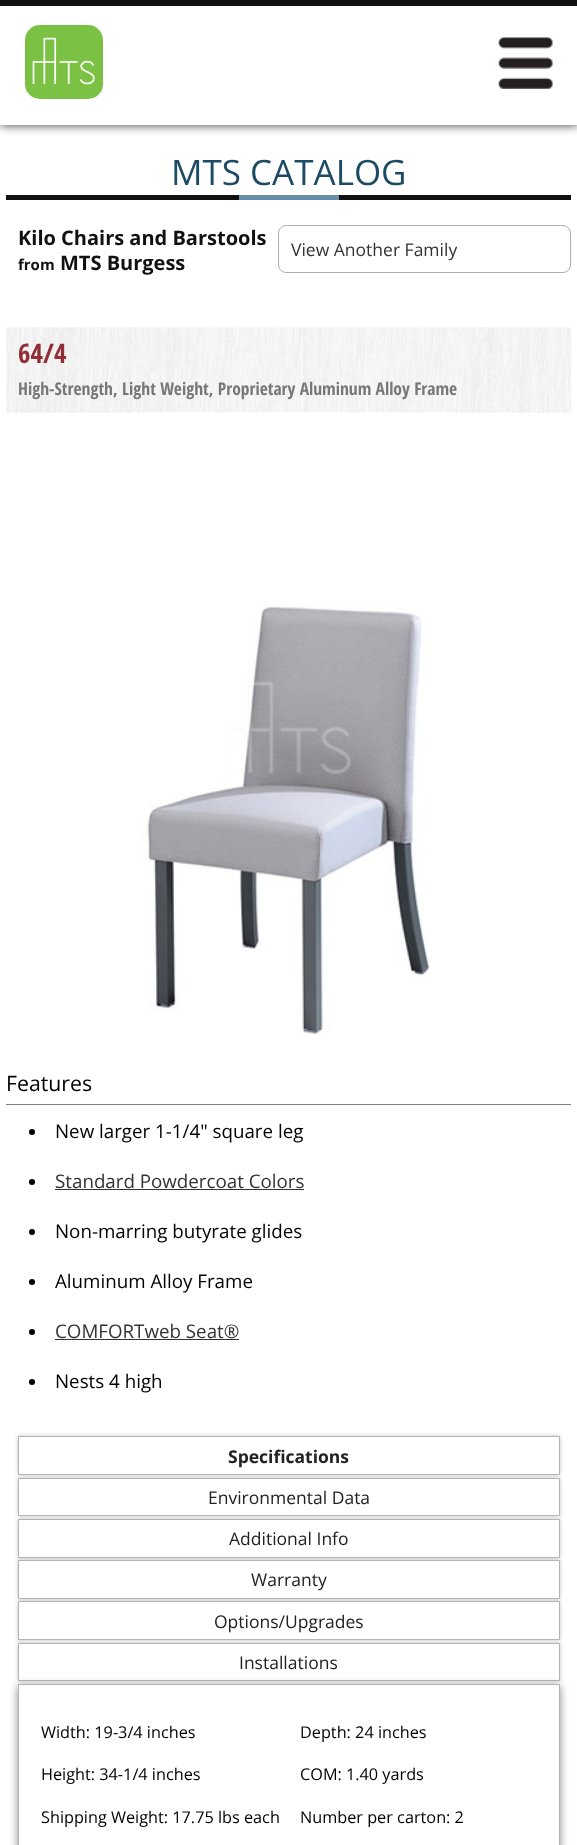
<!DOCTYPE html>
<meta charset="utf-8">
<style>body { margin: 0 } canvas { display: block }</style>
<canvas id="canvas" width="577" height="1845"></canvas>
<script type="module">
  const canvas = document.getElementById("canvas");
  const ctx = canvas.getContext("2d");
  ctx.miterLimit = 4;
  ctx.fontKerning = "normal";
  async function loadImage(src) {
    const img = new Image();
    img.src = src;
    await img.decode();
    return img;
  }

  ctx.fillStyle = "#ffffff";
  ctx.fillRect(0, 0, 577, 1845);
  ctx.fillStyle = "#585858";
  ctx.filter = "blur(5px)";
  ctx.beginPath();
  ctx.rect(0, 1, 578, 125);
  ctx.fill();
  ctx.filter = "none";
  ctx.fillStyle = "#ffffff";
  ctx.fillRect(0, 6, 577, 119);
  ctx.fillStyle = "#121111";
  ctx.fillRect(0, 0, 577, 6);
  ctx.fillStyle = "#7bc143";
  ctx.beginPath();
  ctx.roundRect(25, 25, 78, 74, 15);
  ctx.fill();
  ctx.drawImage(await loadImage("img1.png"), 32, 37, 63, 48);
  ctx.drawImage(await loadImage("img2.png"), 498, 37, 55, 52);
  ctx.fillStyle = "#121111";
  ctx.fillRect(6, 195, 565, 5);
  ctx.font = "35px Open Sans";
  ctx.fillStyle = "#1c4b66";
  ctx.fillText("MTS CATALOG", 171, 185);
  ctx.fillStyle = "#668ea8";
  ctx.fillRect(239, 195, 100, 5);
  ctx.font = "bold 20px Open Sans";
  ctx.fillStyle = "#121111";
  ctx.fillText("Kilo Chairs and Barstools", 18, 245);
  ctx.font = "bold 15px Open Sans";
  ctx.fillText("from", 18, 270);
  ctx.font = "bold 20px Open Sans";
  ctx.fillText("MTS Burgess", 60, 270);
  ctx.beginPath();
  ctx.roundRect(278.5, 225.5, 292, 47, 7.5);
  ctx.strokeStyle = "#afaeae";
  ctx.stroke();
  ctx.font = "17.5px Open Sans";
  ctx.fillStyle = "#333333";
  ctx.fillText("View Another Family", 291, 256);
  ctx.drawImage(await loadImage("img3.png"), 6, 327, 566, 86);
  ctx.drawImage(await loadImage("img4.png"), 13, 327, 556, 86);
  ctx.font = "bold 27px Open Sans Condensed";
  ctx.fillStyle = "#932e36";
  ctx.fillText("64/4", 18, 363);
  ctx.font = "bold 17.55px Open Sans Condensed";
  ctx.fillStyle = "#777777";
  ctx.fillText("High-Strength, Light Weight, Proprietary Aluminum Alloy Frame", 18, 395);
  ctx.drawImage(await loadImage("img5.png"), 130, 412, 318, 622);
  ctx.fillStyle = "#808080";
  ctx.fillRect(6, 1104, 565, 1);
  ctx.font = "21.25px Open Sans";
  ctx.fillStyle = "#000000";
  ctx.fillText("Features", 6, 1091);
  ctx.beginPath();
  ctx.arc(32, 1132, 3, 0, Math.PI * 2);
  ctx.fill();
  ctx.font = "18.75px Open Sans";
  ctx.fillText("New larger 1-1/4\" square leg", 55, 1138);
  ctx.beginPath();
  ctx.arc(32, 1182, 3, 0, Math.PI * 2);
  ctx.fill();
  ctx.fillStyle = "#333333";
  ctx.fillText("Standard Powdercoat Colors", 55, 1188);
  ctx.fillRect(55, 1189, 249, 1);
  ctx.fillStyle = "#000000";
  ctx.beginPath();
  ctx.arc(32, 1232, 3, 0, Math.PI * 2);
  ctx.fill();
  ctx.fillText("Non-marring butyrate glides", 55, 1238);
  ctx.beginPath();
  ctx.arc(32, 1282, 3, 0, Math.PI * 2);
  ctx.fill();
  ctx.fillText("Aluminum Alloy Frame", 55, 1288);
  ctx.beginPath();
  ctx.arc(32, 1332, 3, 0, Math.PI * 2);
  ctx.fill();
  ctx.fillStyle = "#333333";
  ctx.fillText("COMFORTweb Seat®", 55, 1338);
  ctx.fillRect(55, 1339, 184, 1);
  ctx.fillStyle = "#000000";
  ctx.beginPath();
  ctx.arc(32, 1382, 3, 0, Math.PI * 2);
  ctx.fill();
  ctx.fillText("Nests 4 high", 55, 1388);
  ctx.fillStyle = "rgba(187, 187, 187, 0.85)";
  ctx.filter = "blur(2px)";
  ctx.beginPath();
  ctx.rect(18, 1436, 542, 39);
  ctx.fill();
  ctx.filter = "none";
  ctx.fillStyle = "#ffffff";
  ctx.beginPath();
  ctx.rect(18.5, 1436.5, 541, 38);
  ctx.fill();
  ctx.strokeStyle = "#b4b4b4";
  ctx.stroke();
  ctx.font = "bold 17.5px Open Sans";
  ctx.fillStyle = "#222222";
  ctx.fillText("Specifications", 228, 1463);
  ctx.fillStyle = "rgba(187, 187, 187, 0.85)";
  ctx.filter = "blur(2px)";
  ctx.beginPath();
  ctx.rect(18, 1478, 542, 38);
  ctx.fill();
  ctx.filter = "none";
  ctx.fillStyle = "#ffffff";
  ctx.beginPath();
  ctx.rect(18.5, 1478.5, 541, 37);
  ctx.fill();
  ctx.stroke();
  ctx.font = "17.5px Open Sans";
  ctx.fillStyle = "#222222";
  ctx.fillText("Environmental Data", 208, 1504);
  ctx.fillStyle = "rgba(187, 187, 187, 0.85)";
  ctx.filter = "blur(2px)";
  ctx.beginPath();
  ctx.rect(18, 1519, 542, 39);
  ctx.fill();
  ctx.filter = "none";
  ctx.fillStyle = "#ffffff";
  ctx.beginPath();
  ctx.rect(18.5, 1519.5, 541, 38);
  ctx.fill();
  ctx.stroke();
  ctx.fillStyle = "#222222";
  ctx.fillText("Additional Info", 229, 1545);
  ctx.fillStyle = "rgba(187, 187, 187, 0.85)";
  ctx.filter = "blur(2px)";
  ctx.beginPath();
  ctx.rect(18, 1560, 542, 39);
  ctx.fill();
  ctx.filter = "none";
  ctx.fillStyle = "#ffffff";
  ctx.beginPath();
  ctx.rect(18.5, 1560.5, 541, 38);
  ctx.fill();
  ctx.stroke();
  ctx.fillStyle = "#222222";
  ctx.fillText("Warranty", 251, 1586);
  ctx.fillStyle = "rgba(187, 187, 187, 0.85)";
  ctx.filter = "blur(2px)";
  ctx.beginPath();
  ctx.rect(18, 1601, 542, 39);
  ctx.fill();
  ctx.filter = "none";
  ctx.fillStyle = "#ffffff";
  ctx.beginPath();
  ctx.rect(18.5, 1601.5, 541, 38);
  ctx.fill();
  ctx.stroke();
  ctx.fillStyle = "#222222";
  ctx.fillText("Options/Upgrades", 214, 1628);
  ctx.fillStyle = "rgba(187, 187, 187, 0.85)";
  ctx.filter = "blur(2px)";
  ctx.beginPath();
  ctx.rect(18, 1643, 542, 38);
  ctx.fill();
  ctx.filter = "none";
  ctx.fillStyle = "#ffffff";
  ctx.beginPath();
  ctx.rect(18.5, 1643.5, 541, 37);
  ctx.fill();
  ctx.stroke();
  ctx.fillStyle = "#222222";
  ctx.fillText("Installations", 239, 1669);
  ctx.save();
  ctx.beginPath();
  ctx.moveTo(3, 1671);
  ctx.lineTo(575, 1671);
  ctx.lineTo(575, 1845);
  ctx.lineTo(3, 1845);
  ctx.closePath();
  ctx.moveTo(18, 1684);
  ctx.lineTo(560, 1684);
  ctx.lineTo(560, 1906);
  ctx.lineTo(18, 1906);
  ctx.closePath();
  ctx.clip("evenodd");
  ctx.fillStyle = "#888888";
  ctx.filter = "blur(4.5px)";
  ctx.beginPath();
  ctx.rect(18, 1686, 542, 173);
  ctx.fill();
  ctx.filter = "none";
  ctx.restore();
  ctx.strokeRect(18.5, 1684.5, 541, 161);
  ctx.font = "16.25px Open Sans";
  ctx.fillStyle = "#000000";
  ctx.fillText("Width: 19-3/4 inches", 41, 1738);
  ctx.fillText("Depth: 24 inches", 300, 1738);
  ctx.fillText("Height: 34-1/4 inches", 41, 1780);
  ctx.fillText("COM: 1.40 yards", 300, 1780);
  ctx.fillText("Shipping Weight: 17.75 lbs each", 41, 1823);
  ctx.fillText("Number per carton: 2", 300, 1823);
</script>
